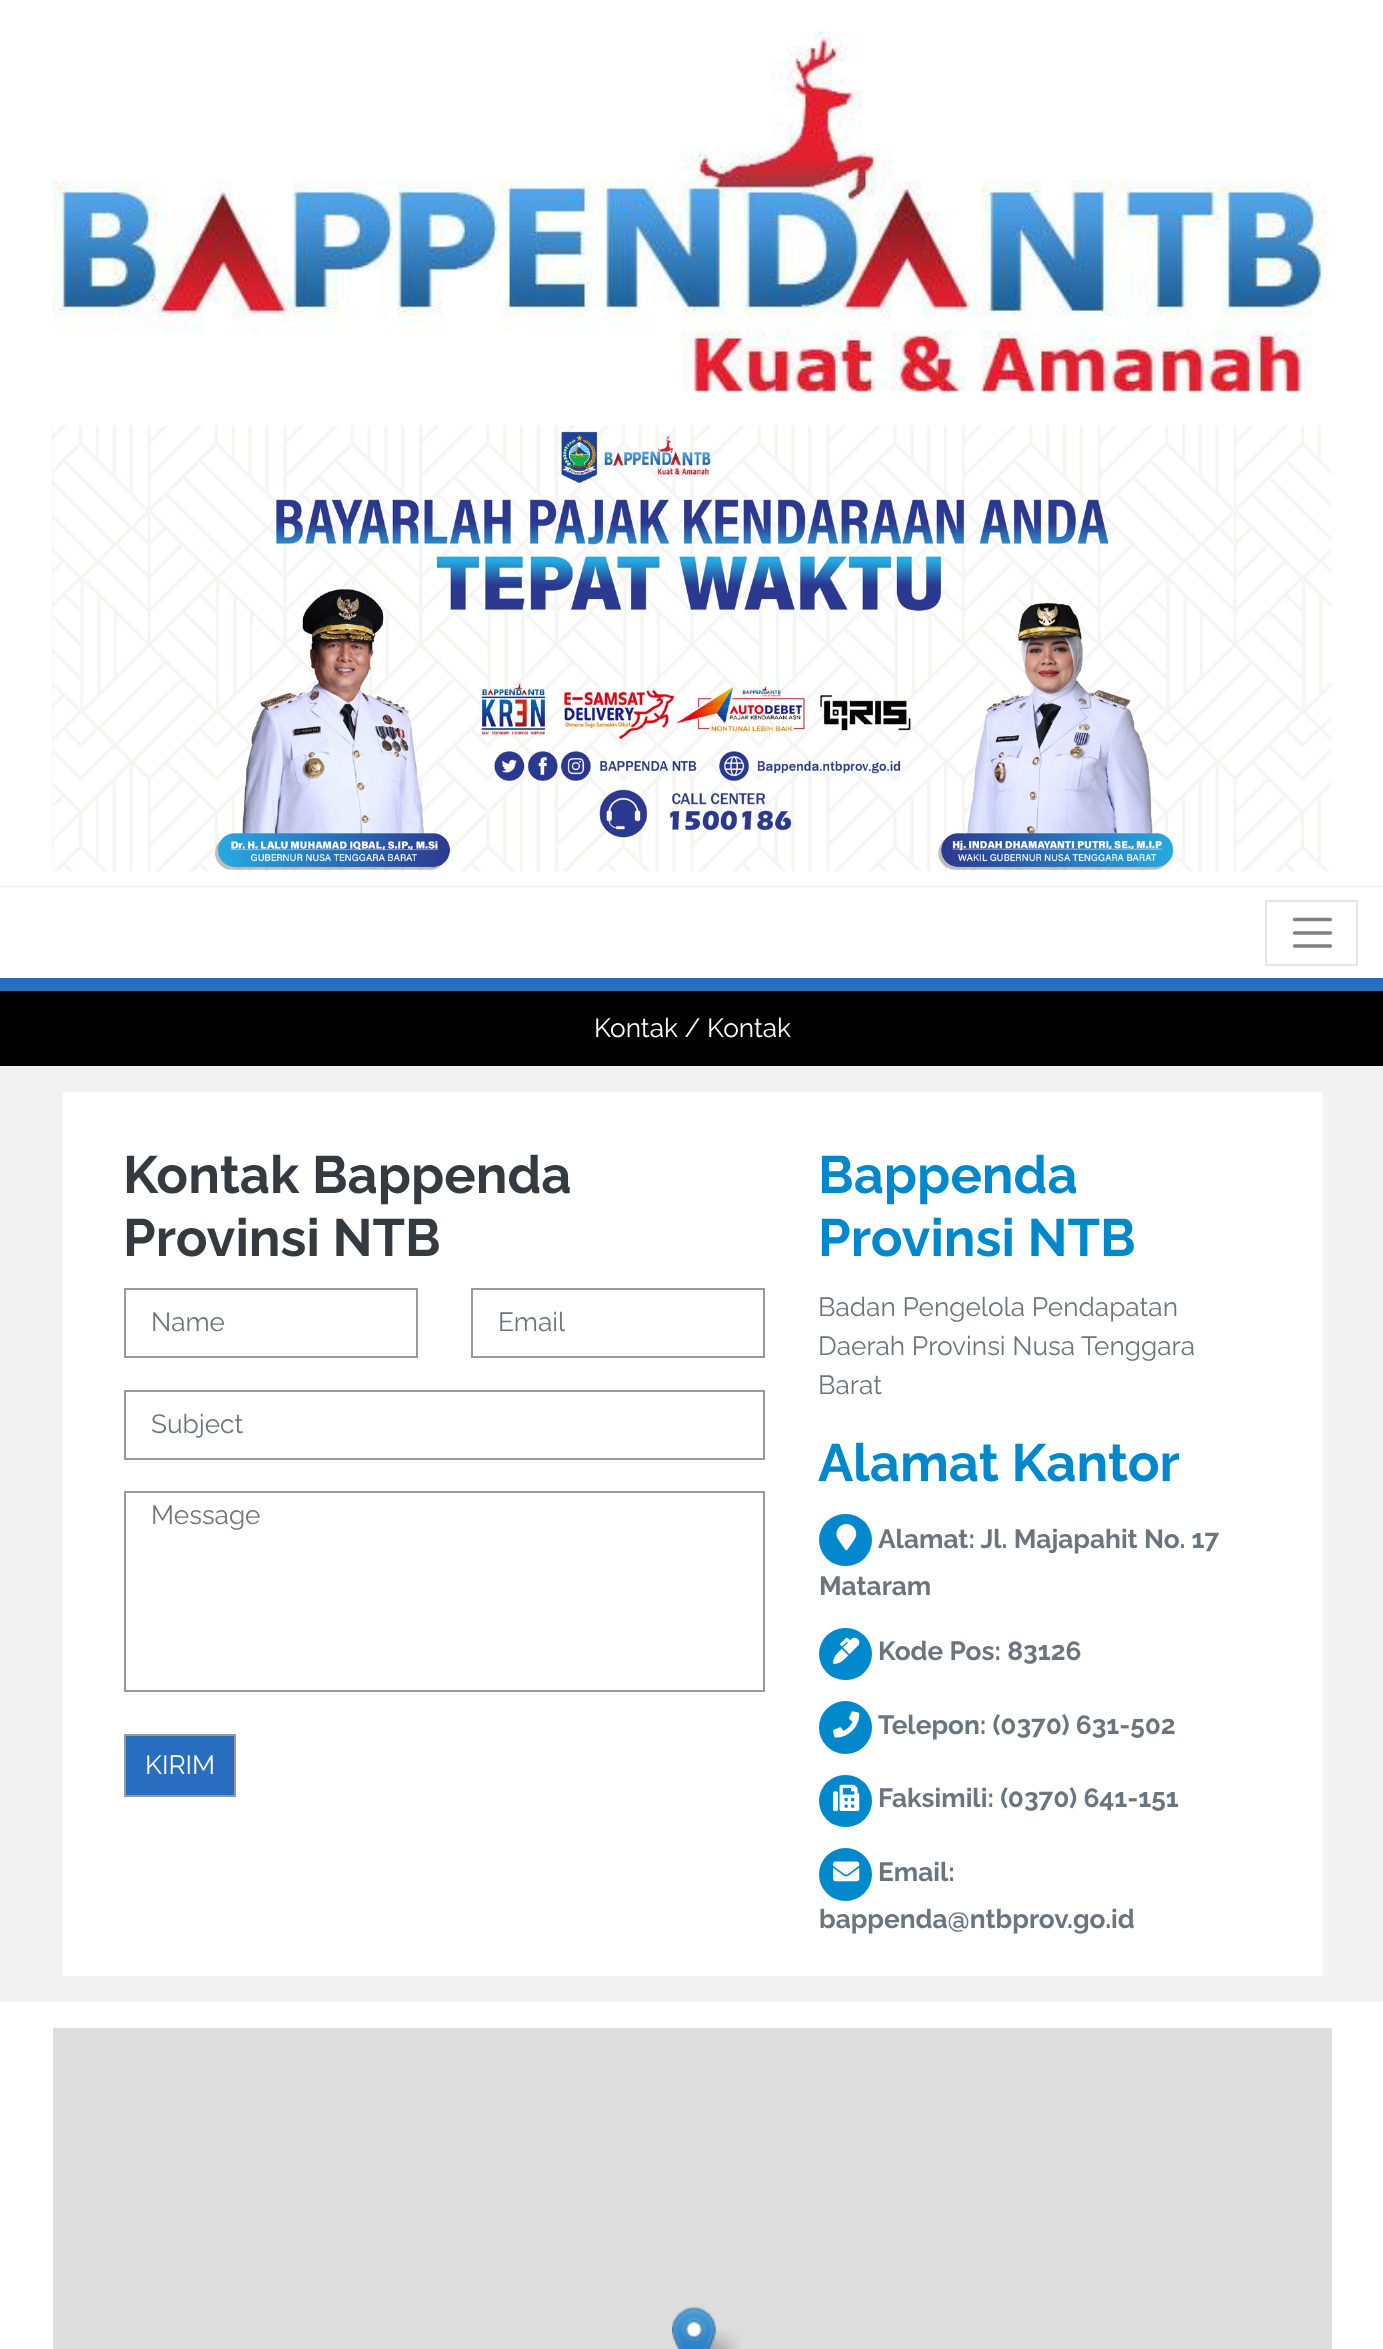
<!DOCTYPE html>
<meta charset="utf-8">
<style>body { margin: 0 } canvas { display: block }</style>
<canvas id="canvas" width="1383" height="2349"></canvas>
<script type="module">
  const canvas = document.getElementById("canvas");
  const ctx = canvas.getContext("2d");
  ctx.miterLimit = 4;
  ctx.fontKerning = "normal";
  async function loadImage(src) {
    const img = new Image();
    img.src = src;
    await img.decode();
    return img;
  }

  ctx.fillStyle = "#f2f2f2";
  ctx.fillRect(0, 0, 1383, 2349);
  ctx.fillStyle = "#ffffff";
  ctx.fillRect(0, 0, 1383, 886);
  ctx.fillStyle = "#eeeeee";
  ctx.fillRect(0, 886, 1383, 1);
  ctx.drawImage(await loadImage("img1.png"), 52, 31, 1280, 362);
  ctx.drawImage(await loadImage("img2.png"), 52, 425, 1280, 447);
  ctx.fillStyle = "#296dc1";
  ctx.fillRect(0, 978, 1383, 13);
  ctx.fillStyle = "#ffffff";
  ctx.fillRect(0, 887, 1383, 91);
  ctx.strokeStyle = "#e6e6e6";
  ctx.lineWidth = 2;
  ctx.strokeRect(1266, 901, 91, 64);
  ctx.beginPath();
  ctx.moveTo(1294.5, 919.5);
  ctx.lineTo(1330.5, 919.5);
  ctx.moveTo(1294.5, 933);
  ctx.lineTo(1330.5, 933);
  ctx.moveTo(1294.5, 946);
  ctx.lineTo(1330.5, 946);
  ctx.strokeStyle = "#808080";
  ctx.lineWidth = 3.3;
  ctx.lineCap = "round";
  ctx.stroke();
  ctx.fillStyle = "#000000";
  ctx.fillRect(0, 991, 1383, 75);
  ctx.font = "26.25px Raleway";
  ctx.fillStyle = "#ffffff";
  ctx.fillText("Kontak / Kontak", 594, 1037);
  ctx.fillRect(63, 1092, 1260, 884);
  ctx.font = "bold 52.5px Raleway";
  ctx.fillStyle = "#343a40";
  ctx.fillText("Kontak Bappenda", 123, 1193);
  ctx.fillText("Provinsi NTB", 123, 1256);
  ctx.strokeStyle = "#999999";
  ctx.lineWidth = 2;
  ctx.strokeRect(125, 1289, 292, 68);
  ctx.font = "26.25px Raleway";
  ctx.fillStyle = "#6c757d";
  ctx.fillText("Name", 151, 1331);
  ctx.strokeRect(472, 1289, 292, 68);
  ctx.fillText("Email", 498, 1331);
  ctx.strokeRect(125, 1391, 639, 68);
  ctx.fillText("Subject", 151, 1433);
  ctx.strokeRect(125, 1492, 639, 199);
  ctx.fillStyle = "#757575";
  ctx.fillText("Message", 151, 1524);
  ctx.fillStyle = "#296dc1";
  ctx.beginPath();
  ctx.rect(125, 1735, 110, 61);
  ctx.fill();
  ctx.stroke();
  ctx.fillStyle = "#ffffff";
  ctx.fillText("KIRIM", 145, 1774);
  ctx.font = "bold 52.5px Raleway";
  ctx.fillStyle = "#0088cc";
  ctx.fillText("Bappenda", 818, 1193);
  ctx.fillText("Provinsi NTB", 818, 1256);
  ctx.font = "26.25px Raleway";
  ctx.fillStyle = "#6c757d";
  ctx.fillText("Badan Pengelola Pendapatan", 818, 1316);
  ctx.fillText("Daerah Provinsi Nusa Tenggara", 818, 1355);
  ctx.fillText("Barat", 818, 1394);
  ctx.font = "bold 52.5px Raleway";
  ctx.fillStyle = "#0088cc";
  ctx.fillText("Alamat Kantor", 818, 1481);
  ctx.beginPath();
  ctx.roundRect(819, 1514, 53, 52, 26);
  ctx.fill();
  ctx.drawImage(await loadImage("img3.png"), 836, 1524, 21, 27);
  ctx.font = "bold 26.25px Raleway";
  ctx.fillStyle = "#6c757d";
  ctx.fillText("Alamat: Jl. Majapahit No. 17", 878, 1548);
  ctx.fillText("Mataram", 819, 1595);
  ctx.fillStyle = "#0088cc";
  ctx.beginPath();
  ctx.roundRect(819, 1628, 53, 52, 26);
  ctx.fill();
  ctx.drawImage(await loadImage("img4.png"), 833, 1637, 27, 27);
  ctx.fillStyle = "#6c757d";
  ctx.fillText("Kode Pos: 83126", 878, 1660);
  ctx.fillStyle = "#0088cc";
  ctx.beginPath();
  ctx.arc(845.5, 1727.5, 26.5, 0, Math.PI * 2);
  ctx.fill();
  ctx.drawImage(await loadImage("img5.png"), 833, 1711, 27, 27);
  ctx.fillStyle = "#6c757d";
  ctx.fillText("Telepon: (0370) 631-502", 878, 1734);
  ctx.fillStyle = "#0088cc";
  ctx.beginPath();
  ctx.roundRect(819, 1775, 53, 52, 26);
  ctx.fill();
  ctx.drawImage(await loadImage("img6.png"), 833, 1784, 27, 27);
  ctx.fillStyle = "#6c757d";
  ctx.fillText("Faksimili: (0370) 641-151", 878, 1807);
  ctx.fillStyle = "#0088cc";
  ctx.beginPath();
  ctx.arc(845.5, 1874.5, 26.5, 0, Math.PI * 2);
  ctx.fill();
  ctx.drawImage(await loadImage("img7.png"), 833, 1861, 27, 21);
  ctx.fillStyle = "#6c757d";
  ctx.fillText("Email:", 878, 1881);
  ctx.fillText("bappenda@ntbprov.go.id", 819, 1928);
  ctx.fillStyle = "#ffffff";
  ctx.fillRect(0, 2002, 1383, 347);
  ctx.fillStyle = "#dddddd";
  ctx.fillRect(53, 2028, 1279, 321);
  ctx.drawImage(await loadImage("img9.png"), 706, 2329, 34, 20);
  ctx.drawImage(await loadImage("img8.png"), 672, 2307, 44, 42);
</script>
